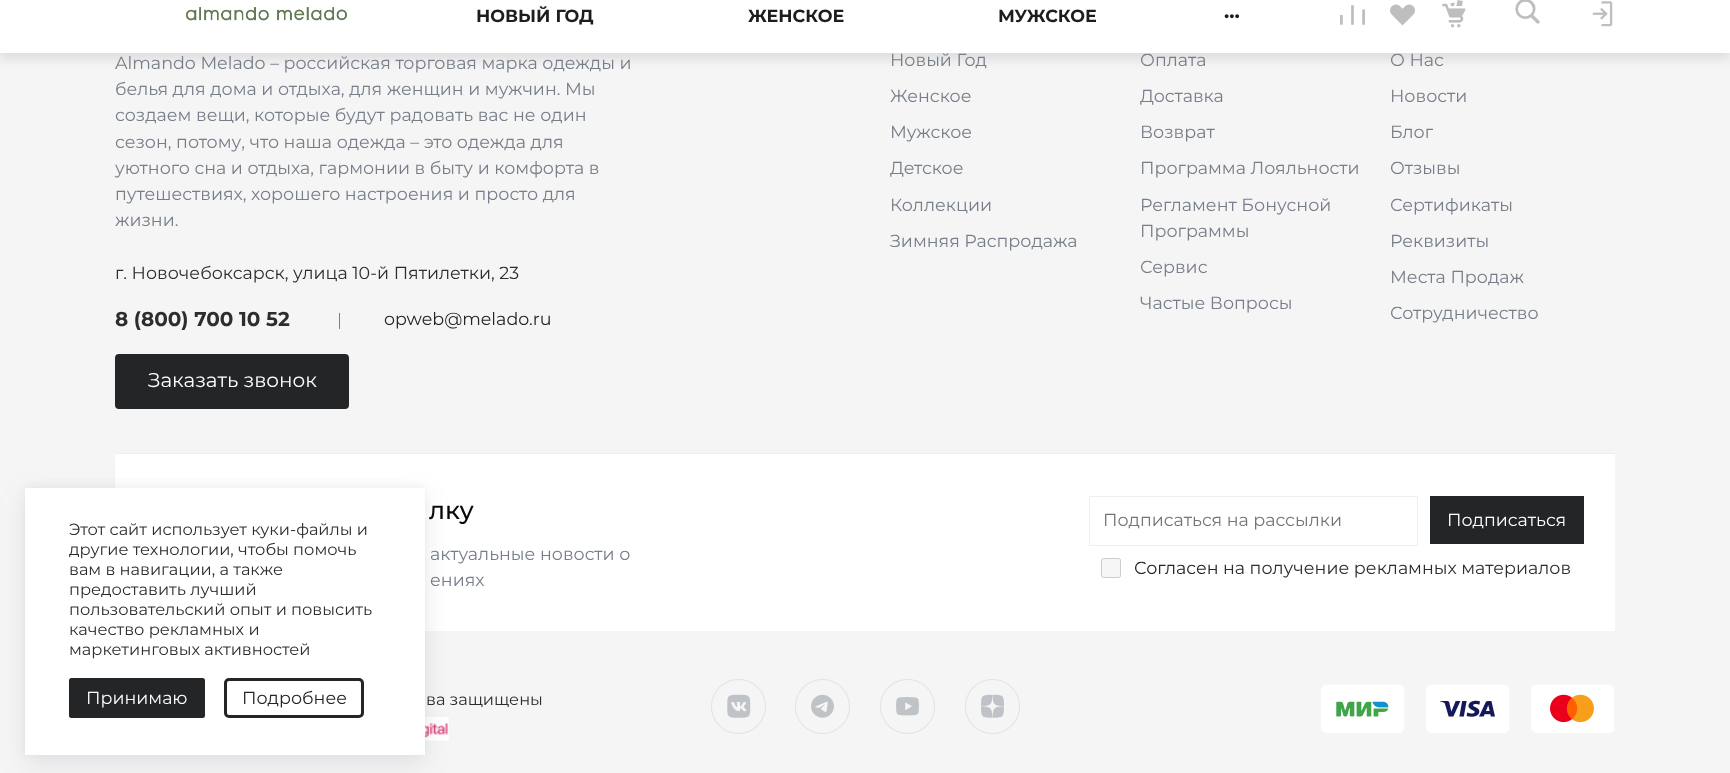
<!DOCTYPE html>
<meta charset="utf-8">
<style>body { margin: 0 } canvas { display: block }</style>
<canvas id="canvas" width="1730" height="773"></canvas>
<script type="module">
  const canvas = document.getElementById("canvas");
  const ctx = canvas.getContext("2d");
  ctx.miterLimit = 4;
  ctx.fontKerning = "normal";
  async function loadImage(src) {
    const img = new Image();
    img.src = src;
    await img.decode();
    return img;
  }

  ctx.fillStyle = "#f5f5f5";
  ctx.fillRect(0, 0, 1730, 773);
  ctx.fillStyle = "rgba(0, 0, 0, 0.1)";
  ctx.filter = "blur(6px)";
  ctx.beginPath();
  ctx.rect(0, -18, 1730, 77);
  ctx.fill();
  ctx.filter = "none";
  ctx.fillStyle = "#ffffff";
  ctx.fillRect(0, 0, 1730, 53);
  ctx.drawImage(await loadImage("img1.png"), 186, 7, 161, 14);
  ctx.font = "bold 17.5px Montserrat";
  ctx.fillStyle = "#1d1d1d";
  ctx.fillText("НОВЫЙ ГОД", 476, 22);
  ctx.fillText("ЖЕНСКОЕ", 748, 22);
  ctx.fillText("МУЖСКОЕ", 998, 22);
  ctx.font = "bold 20px Montserrat";
  ctx.fillText("...", 1224, 18);
  ctx.drawImage(await loadImage("img2.png"), 1340, 5, 25, 20);
  ctx.drawImage(await loadImage("img3.png"), 1390, 4, 25, 22);
  ctx.drawImage(await loadImage("img4.png"), 1442, 0, 24, 28);
  ctx.drawImage(await loadImage("img5.png"), 1515, 0, 25, 24);
  ctx.drawImage(await loadImage("img6.png"), 1592, 1, 21, 26);
  ctx.font = "17.5px Montserrat";
  ctx.fillStyle = "#777e89";
  ctx.fillText("Almando Melado – российская торговая марка одежды и", 115, 69);
  ctx.fillText("белья для дома и отдыха, для женщин и мужчин. Мы", 115, 95);
  ctx.fillText("создаем вещи, которые будут радовать вас не один", 115, 121);
  ctx.fillText("сезон, потому, что наша одежда – это одежда для", 115, 148);
  ctx.fillText("уютного сна и отдыха, гармонии в быту и комфорта в", 115, 174);
  ctx.fillText("путешествиях, хорошего настроения и просто для", 115, 200);
  ctx.fillText("жизни.", 115, 226);
  ctx.fillStyle = "#2d2d2d";
  ctx.fillText("г. Новочебоксарск, улица 10-й Пятилетки, 23", 115, 279);
  ctx.font = "bold 20px Montserrat";
  ctx.fillText("8 (800) 700 10 52", 115, 326);
  ctx.fillStyle = "#777e89";
  ctx.fillRect(339, 313, 1, 16);
  ctx.font = "17.5px Montserrat";
  ctx.fillStyle = "#232526";
  ctx.fillText("opweb@melado.ru", 384, 325);
  ctx.beginPath();
  ctx.roundRect(116.5, 355.5, 231, 52, 2.5);
  ctx.fill();
  ctx.strokeStyle = "#232526";
  ctx.lineWidth = 3;
  ctx.stroke();
  ctx.font = "20px Montserrat";
  ctx.fillStyle = "#ffffff";
  ctx.fillText("Заказать звонок", 148, 387);
  ctx.font = "17.5px Montserrat";
  ctx.fillStyle = "#777e89";
  ctx.fillText("Новый Год", 890, 66);
  ctx.fillText("Женское", 890, 102);
  ctx.fillText("Мужское", 890, 138);
  ctx.fillText("Детское", 890, 174);
  ctx.fillText("Коллекции", 890, 211);
  ctx.fillText("Зимняя Распродажа", 890, 247);
  ctx.fillText("Оплата", 1140, 66);
  ctx.fillText("Доставка", 1140, 102);
  ctx.fillText("Возврат", 1140, 138);
  ctx.fillText("Программа Лояльности", 1140, 174);
  ctx.fillText("Регламент Бонусной", 1140, 211);
  ctx.fillText("Программы", 1140, 237);
  ctx.fillText("Сервис", 1140, 273);
  ctx.fillText("Частые Вопросы", 1140, 309);
  ctx.fillText("О Нас", 1390, 66);
  ctx.fillText("Новости", 1390, 102);
  ctx.fillText("Блог", 1390, 138);
  ctx.fillText("Отзывы", 1390, 174);
  ctx.fillText("Сертификаты", 1390, 211);
  ctx.fillText("Реквизиты", 1390, 247);
  ctx.fillText("Места Продаж", 1390, 283);
  ctx.fillText("Сотрудничество", 1390, 319);
  ctx.fillStyle = "#ffffff";
  ctx.fillRect(115, 454, 1500, 177);
  ctx.fillStyle = "#eeeeee";
  ctx.fillRect(115, 453, 1500, 1);
  ctx.font = "500 25px Montserrat";
  ctx.fillStyle = "#090909";
  ctx.fillText("лку", 429, 519);
  ctx.font = "17.5px Montserrat";
  ctx.fillStyle = "#777e89";
  ctx.fillText("актуальные новости о", 430, 560);
  ctx.fillText("ениях", 430, 586);
  ctx.strokeStyle = "#efefef";
  ctx.lineWidth = 1;
  ctx.strokeRect(1089.5, 496.5, 328, 49);
  ctx.fillStyle = "#757575";
  ctx.fillText("Подписаться на рассылки", 1103, 526);
  ctx.fillStyle = "#232526";
  ctx.fillRect(1430, 496, 154, 48);
  ctx.fillStyle = "#ffffff";
  ctx.fillText("Подписаться", 1447, 526);
  ctx.fillStyle = "#f6f6f6";
  ctx.beginPath();
  ctx.roundRect(1101.5, 558.5, 19, 19, 2);
  ctx.fill();
  ctx.strokeStyle = "#cccccc";
  ctx.stroke();
  ctx.fillStyle = "#232526";
  ctx.fillText("Согласен", 1134, 574);
  ctx.fillStyle = "#2d2d2d";
  ctx.fillText("на получение рекламных материалов", 1223, 574);
  ctx.font = "16.25px Montserrat";
  ctx.fillText("ва защищены", 426, 705);
  ctx.drawImage(await loadImage("img7.png"), 425, 717, 24, 24);
  ctx.drawImage(await loadImage("img8.png"), 711, 679, 55, 55);
  ctx.drawImage(await loadImage("img9.png"), 795, 679, 55, 55);
  ctx.drawImage(await loadImage("img10.png"), 880, 679, 55, 55);
  ctx.drawImage(await loadImage("img11.png"), 965, 679, 55, 55);
  ctx.drawImage(await loadImage("img12.png"), 1321, 684, 84, 49);
  ctx.drawImage(await loadImage("img13.png"), 1426, 684, 84, 49);
  ctx.drawImage(await loadImage("img14.png"), 1531, 684, 84, 49);
  ctx.fillStyle = "rgba(83, 92, 105, 0.06)";
  ctx.filter = "blur(4px)";
  ctx.beginPath();
  ctx.rect(25, 486, 400, 268);
  ctx.fill();
  ctx.filter = "none";
  ctx.fillStyle = "rgba(83, 92, 105, 0.12)";
  ctx.filter = "blur(13px)";
  ctx.beginPath();
  ctx.rect(25, 496, 400, 268);
  ctx.fill();
  ctx.filter = "none";
  ctx.fillStyle = "#ffffff";
  ctx.fillRect(25, 488, 400, 267);
  ctx.fillStyle = "#2d2d2d";
  ctx.fillText("Этот сайт использует куки-файлы и", 69, 535);
  ctx.save();
  ctx.beginPath();
  ctx.rect(69, 519, 312, 199);
  ctx.clip();
  ctx.fillText("другие технологии, чтобы помочь", 69, 555);
  ctx.restore();
  ctx.fillText("вам в навигации, а также", 69, 575);
  ctx.fillText("предоставить лучший", 69, 595);
  ctx.fillText("пользовательский опыт и повысить", 69, 615);
  ctx.fillText("качество рекламных и", 69, 635);
  ctx.fillText("маркетинговых активностей", 69, 655);
  ctx.fillStyle = "#232526";
  ctx.beginPath();
  ctx.roundRect(70.5, 679.5, 133, 37, 1);
  ctx.fill();
  ctx.strokeStyle = "#232526";
  ctx.lineWidth = 3;
  ctx.stroke();
  ctx.font = "17.5px Montserrat";
  ctx.fillStyle = "#ffffff";
  ctx.fillText("Принимаю", 86, 704);
  ctx.beginPath();
  ctx.roundRect(225.5, 679.5, 137, 37, 3.5);
  ctx.stroke();
  ctx.fillStyle = "#232526";
  ctx.fillText("Подробнее", 242, 704);
</script>
